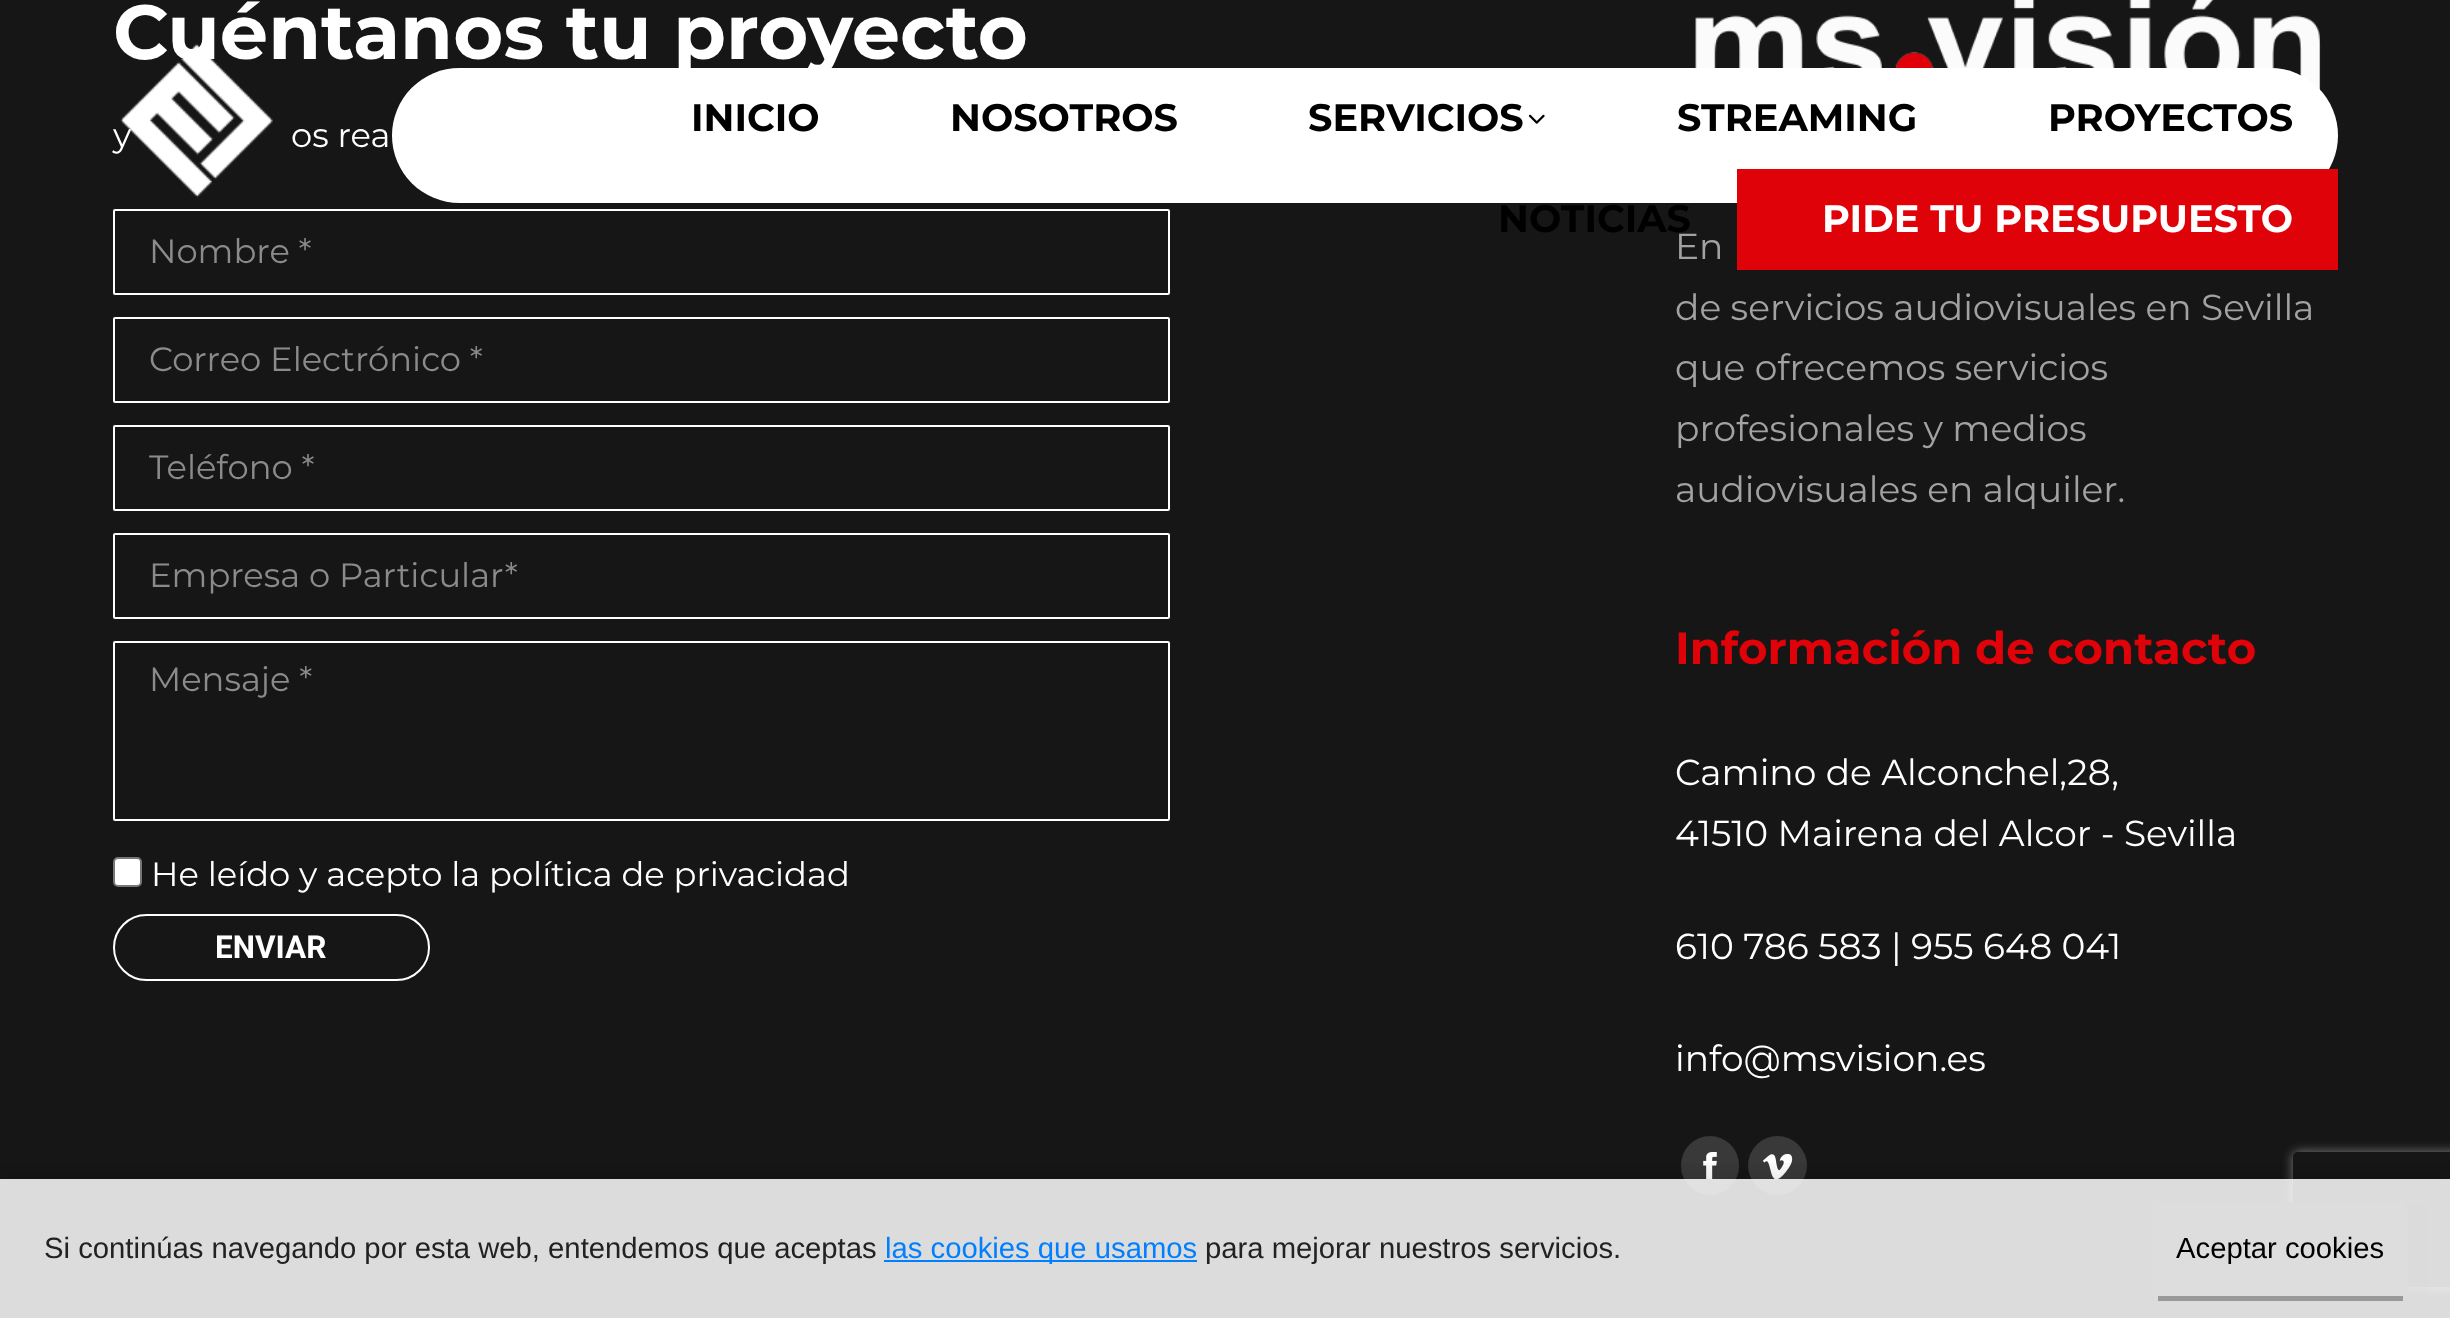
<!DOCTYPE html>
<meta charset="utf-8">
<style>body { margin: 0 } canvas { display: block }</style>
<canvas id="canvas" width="2450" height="1318"></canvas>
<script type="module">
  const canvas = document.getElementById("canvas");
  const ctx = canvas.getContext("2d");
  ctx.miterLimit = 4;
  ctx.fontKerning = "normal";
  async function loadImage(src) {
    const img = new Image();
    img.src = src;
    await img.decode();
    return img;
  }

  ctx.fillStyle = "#161616";
  ctx.fillRect(0, 0, 2450, 1318);
  ctx.font = "bold 76.5px Montserrat";
  ctx.fillStyle = "#ffffff";
  ctx.fillText("Cuéntanos tu proyecto", 113, 59);
  ctx.font = "33.75px Montserrat";
  ctx.fillText("y", 113, 147);
  ctx.fillText("os rea", 291, 147);
  ctx.beginPath();
  ctx.roundRect(114, 210, 1055, 84, 1);
  ctx.strokeStyle = "#ffffff";
  ctx.lineWidth = 2;
  ctx.stroke();
  ctx.fillStyle = "#8b8b8b";
  ctx.fillText("Nombre *", 149, 263);
  ctx.beginPath();
  ctx.roundRect(114, 318, 1055, 84, 1);
  ctx.stroke();
  ctx.fillText("Correo Electrónico *", 149, 371);
  ctx.beginPath();
  ctx.roundRect(114, 426, 1055, 84, 1);
  ctx.stroke();
  ctx.save();
  ctx.beginPath();
  ctx.rect(149, 446, 985, 42);
  ctx.clip();
  ctx.fillText("Teléfono *", 149, 479);
  ctx.restore();
  ctx.beginPath();
  ctx.roundRect(114, 534, 1055, 84, 1);
  ctx.stroke();
  ctx.fillText("Empresa o Particular*", 149, 587);
  ctx.beginPath();
  ctx.roundRect(114, 642, 1055, 178, 1);
  ctx.stroke();
  ctx.fillText("Mensaje *", 149, 691);
  ctx.fillStyle = "#ffffff";
  ctx.beginPath();
  ctx.roundRect(114, 858, 27, 28, 4);
  ctx.fill();
  ctx.strokeStyle = "#767676";
  ctx.stroke();
  ctx.fillText("He leído y acepto la política de privacidad", 151, 886);
  ctx.beginPath();
  ctx.roundRect(114, 915, 315, 65, 32.5);
  ctx.strokeStyle = "#ffffff";
  ctx.stroke();
  ctx.font = "bold 31.5px Roboto";
  ctx.fillText("ENVIAR", 215, 958);
  ctx.drawImage(await loadImage("img1.png"), 1695, 0, 626, 90);
  ctx.font = "36px Montserrat";
  ctx.fillStyle = "#a2a2a2";
  ctx.fillText("En", 1675, 259);
  ctx.fillText("de servicios audiovisuales en Sevilla", 1675, 320);
  ctx.fillText("que ofrecemos servicios", 1675, 380);
  ctx.fillText("profesionales y medios", 1675, 441);
  ctx.fillText("audiovisuales en alquiler.", 1675, 502);
  ctx.font = "bold 45px Montserrat";
  ctx.fillStyle = "#e00209";
  ctx.fillText("Información de contacto", 1675, 664);
  ctx.font = "36px Montserrat";
  ctx.fillStyle = "#ffffff";
  ctx.fillText("Camino de Alconchel,28,", 1675, 785);
  ctx.fillText("41510 Mairena del Alcor - Sevilla", 1675, 846);
  ctx.fillText("610 786 583 | 955 648 041", 1675, 959);
  ctx.fillText("info@msvision.es", 1675, 1071);
  ctx.fillStyle = "#393939";
  ctx.beginPath();
  ctx.roundRect(1681, 1136, 58, 59, 29);
  ctx.fill();
  ctx.drawImage(await loadImage("img2.png"), 1703, 1152, 14, 27);
  ctx.beginPath();
  ctx.arc(1777.5, 1165.5, 29.5, 0, Math.PI * 2);
  ctx.fill();
  ctx.drawImage(await loadImage("img3.png"), 1763, 1154, 30, 26);
  ctx.drawImage(await loadImage("img4.png"), 120, 43, 153, 155);
  ctx.fillStyle = "#ffffff";
  ctx.beginPath();
  ctx.roundRect(392, 68, 1946, 135, 67.5);
  ctx.fill();
  ctx.font = "bold 38.25px Montserrat";
  ctx.fillStyle = "#000000";
  ctx.fillText("INICIO", 691, 131);
  ctx.fillText("NOSOTROS", 950, 131);
  ctx.fillText("SERVICIOS", 1308, 131);
  ctx.drawImage(await loadImage("img5.png"), 1528, 114, 17, 10);
  ctx.fillText("STREAMING", 1677, 131);
  ctx.fillText("PROYECTOS", 2048, 131);
  ctx.fillText("NOTICIAS", 1498, 232);
  ctx.fillStyle = "#e00209";
  ctx.fillRect(1737, 169, 601, 101);
  ctx.fillStyle = "#ffffff";
  ctx.fillText("PIDE TU PRESUPUESTO", 1822, 232);
  ctx.save();
  ctx.beginPath();
  ctx.moveTo(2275, 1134);
  ctx.lineTo(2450, 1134);
  ctx.lineTo(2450, 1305);
  ctx.lineTo(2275, 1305);
  ctx.closePath();
  ctx.moveTo(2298, 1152);
  ctx.lineTo(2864, 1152);
  ctx.bezierCurveTo(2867, 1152, 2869, 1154, 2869, 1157);
  ctx.lineTo(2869, 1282);
  ctx.bezierCurveTo(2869, 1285, 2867, 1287, 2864, 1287);
  ctx.lineTo(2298, 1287);
  ctx.bezierCurveTo(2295, 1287, 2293, 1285, 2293, 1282);
  ctx.lineTo(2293, 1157);
  ctx.bezierCurveTo(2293, 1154, 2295, 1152, 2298, 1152);
  ctx.closePath();
  ctx.clip("evenodd");
  ctx.fillStyle = "#808080";
  ctx.filter = "blur(5.5px)";
  ctx.beginPath();
  ctx.roundRect(2293, 1152, 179, 135, 5);
  ctx.fill();
  ctx.filter = "none";
  ctx.restore();
  ctx.fillStyle = "rgba(0, 0, 0, 0.2)";
  ctx.beginPath();
  ctx.roundRect(2338, 1206, 90, 90, 2);
  ctx.fill();
  ctx.save();
  ctx.beginPath();
  ctx.rect(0, 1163, 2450, 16);
  ctx.clip();
  ctx.fillStyle = "rgba(0, 0, 0, 0.1)";
  ctx.filter = "blur(11px)";
  ctx.beginPath();
  ctx.rect(0, 1172, 2450, 140);
  ctx.fill();
  ctx.filter = "none";
  ctx.restore();
  ctx.fillStyle = "rgba(255, 255, 255, 0.85)";
  ctx.fillRect(0, 1179, 2450, 139);
  ctx.font = "29.25px Liberation Sans";
  ctx.fillStyle = "#222222";
  ctx.fillText("Si continúas navegando por esta web, entendemos que aceptas", 44, 1258);
  ctx.fillStyle = "#007fff";
  ctx.fillRect(884, 1260, 313, 2);
  ctx.fillText("las cookies que usamos", 885, 1258);
  ctx.fillStyle = "#222222";
  ctx.fillText("para mejorar nuestros servicios.", 1205, 1258);
  ctx.fillStyle = "#dddddd";
  ctx.beginPath();
  ctx.roundRect(2153, 1202, 255, 99, 9);
  ctx.fill();
  ctx.fillStyle = "#999999";
  ctx.fillRect(2158, 1296, 245, 5);
  ctx.fillStyle = "#000000";
  ctx.fillText("Aceptar cookies", 2176, 1258);
</script>
